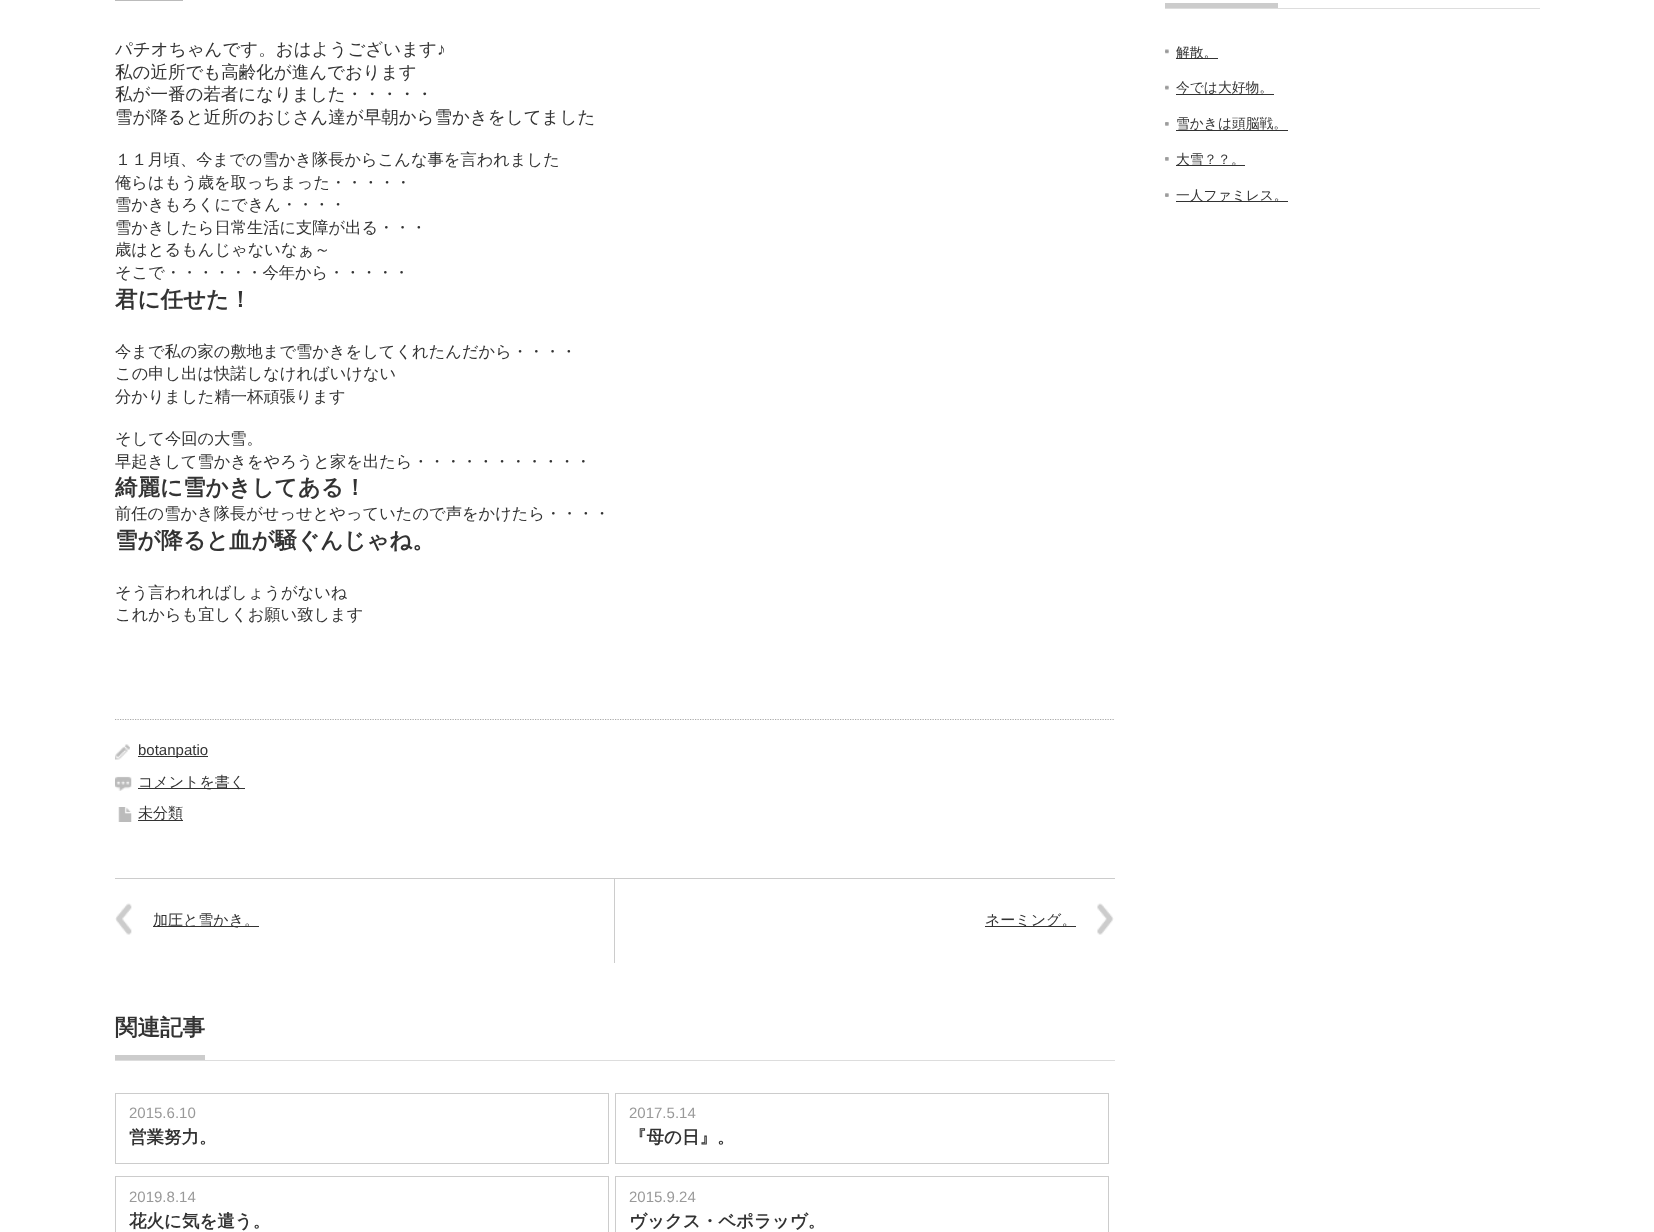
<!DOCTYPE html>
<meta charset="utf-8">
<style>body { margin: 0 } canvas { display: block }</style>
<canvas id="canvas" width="1654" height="1232"></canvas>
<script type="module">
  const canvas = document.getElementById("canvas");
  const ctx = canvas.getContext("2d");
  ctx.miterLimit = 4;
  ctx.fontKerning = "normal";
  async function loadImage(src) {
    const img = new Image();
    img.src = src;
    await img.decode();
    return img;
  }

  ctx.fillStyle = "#ffffff";
  ctx.fillRect(0, 0, 1654, 1232);
  ctx.fillStyle = "#bbbbbb";
  ctx.fillRect(115, 0, 68, 1);
  ctx.font = "500 17.5px WenQuanYi Zen Hei";
  ctx.fillStyle = "#333333";
  ctx.fillText("パチオちゃんです。おはようございます", 115, 55);
  ctx.font = "17.5px Liberation Sans";
  ctx.fillText("♪", 437, 55);
  ctx.font = "500 17.5px WenQuanYi Zen Hei";
  ctx.fillText("私の近所でも高齢化が進んでおります", 115, 78);
  ctx.fillText("私が一番の若者になりました・・・・・", 115, 100);
  ctx.fillText("雪が降ると近所のおじさん達が早朝から雪かきをしてました", 115, 123);
  ctx.font = "500 16.25px WenQuanYi Zen Hei";
  ctx.fillText("１１月頃、今までの雪かき隊長からこんな事を言われました", 115, 165);
  ctx.fillText("俺らはもう歳を取っちまった・・・・・", 115, 188);
  ctx.fillText("雪かきもろくにできん・・・・", 115, 210);
  ctx.fillText("雪かきしたら日常生活に支障が出る・・・", 115, 233);
  ctx.fillText("歳はとるもんじゃないなぁ～", 115, 255);
  ctx.fillText("そこで・・・・・・今年から・・・・・", 115, 278);
  ctx.font = "bold 22.5px WenQuanYi Zen Hei";
  ctx.fillText("君に任せた！", 115, 307);
  ctx.font = "500 16.25px WenQuanYi Zen Hei";
  ctx.fillText("今まで私の家の敷地まで雪かきをしてくれたんだから・・・・", 115, 357);
  ctx.fillText("この申し出は快諾しなければいけない", 115, 379);
  ctx.fillText("分かりました精一杯頑張ります", 115, 402);
  ctx.fillText("そして今回の大雪。", 115, 444);
  ctx.fillText("早起きして雪かきをやろうと家を出たら・・・・・・・・・・・", 115, 467);
  ctx.font = "bold 22.5px WenQuanYi Zen Hei";
  ctx.fillText("綺麗に雪かきしてある！", 115, 495);
  ctx.font = "500 16.25px WenQuanYi Zen Hei";
  ctx.fillText("前任の雪かき隊長がせっせとやっていたので声をかけたら・・・・", 115, 519);
  ctx.font = "bold 22.5px WenQuanYi Zen Hei";
  ctx.fillText("雪が降ると血が騒ぐんじゃね。", 115, 548);
  ctx.font = "500 16.25px WenQuanYi Zen Hei";
  ctx.fillText("そう言われればしょうがないね", 115, 598);
  ctx.fillText("これからも宜しくお願い致します", 115, 620);
  ctx.beginPath();
  ctx.moveTo(115, 719.5);
  ctx.lineTo(1115, 719.5);
  ctx.strokeStyle = "#aaaaaa";
  ctx.lineWidth = 1.2;
  ctx.setLineDash([1.25, 1.25]);
  ctx.stroke();
  ctx.drawImage(await loadImage("img1.png"), 115, 744, 15, 16);
  ctx.fillRect(138, 756, 70, 1);
  ctx.font = "15px Liberation Sans";
  ctx.fillText("botanpatio", 138, 755);
  ctx.drawImage(await loadImage("img2.png"), 115, 776, 17, 15);
  ctx.fillRect(138, 788, 107, 1);
  ctx.font = "500 15px WenQuanYi Zen Hei";
  ctx.fillText("コメントを書く", 138, 787);
  ctx.drawImage(await loadImage("img3.png"), 118, 807, 14, 15);
  ctx.fillRect(138, 820, 45, 1);
  ctx.fillText("未分類", 138, 818);
  ctx.fillStyle = "#cccccc";
  ctx.fillRect(115, 878, 1000, 1);
  ctx.drawImage(await loadImage("img4.png"), 115, 903, 17, 32);
  ctx.fillRect(614, 879, 1, 84);
  ctx.fillStyle = "#333333";
  ctx.fillRect(153, 926, 106, 1);
  ctx.fillText("加圧と雪かき。", 153, 925);
  ctx.drawImage(await loadImage("img5.png"), 1097, 903, 17, 32);
  ctx.fillRect(985, 926, 91, 1);
  ctx.fillText("ネーミング。", 985, 925);
  ctx.fillStyle = "#dddddd";
  ctx.fillRect(115, 1060, 1000, 1);
  ctx.fillStyle = "#cccccc";
  ctx.fillRect(115, 1055, 90, 5);
  ctx.font = "bold 22.5px WenQuanYi Zen Hei";
  ctx.fillStyle = "#333333";
  ctx.fillText("関連記事", 115, 1035);
  ctx.strokeStyle = "#cccccc";
  ctx.lineWidth = 1;
  ctx.setLineDash([]);
  ctx.strokeRect(115.5, 1093.5, 493, 70);
  ctx.font = "15px Liberation Sans";
  ctx.fillStyle = "#999999";
  ctx.fillText("2015.6.10", 129, 1118);
  ctx.font = "bold 17.5px WenQuanYi Zen Hei";
  ctx.fillStyle = "#333333";
  ctx.fillText("営業努力。", 129, 1143);
  ctx.strokeRect(615.5, 1093.5, 493, 70);
  ctx.font = "15px Liberation Sans";
  ctx.fillStyle = "#999999";
  ctx.fillText("2017.5.14", 629, 1118);
  ctx.font = "bold 17.5px WenQuanYi Zen Hei";
  ctx.fillStyle = "#333333";
  ctx.fillText("『母の日』。", 629, 1143);
  ctx.strokeRect(115.5, 1176.5, 493, 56);
  ctx.font = "15px Liberation Sans";
  ctx.fillStyle = "#999999";
  ctx.fillText("2019.8.14", 129, 1202);
  ctx.font = "bold 17.5px WenQuanYi Zen Hei";
  ctx.fillStyle = "#333333";
  ctx.fillText("花火に気を遣う。", 129, 1227);
  ctx.strokeRect(615.5, 1176.5, 493, 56);
  ctx.font = "15px Liberation Sans";
  ctx.fillStyle = "#999999";
  ctx.fillText("2015.9.24", 629, 1202);
  ctx.font = "bold 17.5px WenQuanYi Zen Hei";
  ctx.fillStyle = "#333333";
  ctx.fillText("ヴックス・ベポラッヴ。", 629, 1227);
  ctx.fillStyle = "#dddddd";
  ctx.fillRect(1165, 8, 375, 1);
  ctx.fillStyle = "#cccccc";
  ctx.fillRect(1165, 3, 113, 5);
  ctx.drawImage(await loadImage("img6.png"), 1165, 49, 4, 5);
  ctx.fillStyle = "#333333";
  ctx.fillRect(1176, 58, 42, 1);
  ctx.font = "500 13.75px WenQuanYi Zen Hei";
  ctx.fillText("解散。", 1176, 57);
  ctx.drawImage(await loadImage("img7.png"), 1165, 85, 4, 5);
  ctx.fillRect(1176, 94, 98, 1);
  ctx.fillText("今では大好物。", 1176, 92);
  ctx.drawImage(await loadImage("img8.png"), 1165, 122, 4, 4);
  ctx.fillRect(1176, 130, 112, 1);
  ctx.fillText("雪かきは頭脳戦。", 1176, 128);
  ctx.drawImage(await loadImage("img8.png"), 1165, 157, 4, 4);
  ctx.fillRect(1176, 165, 69, 1);
  ctx.fillText("大雪？？。", 1176, 164);
  ctx.drawImage(await loadImage("img9.png"), 1165, 193, 4, 4);
  ctx.fillRect(1176, 201, 112, 1);
  ctx.fillText("一人ファミレス。", 1176, 200);
</script>
